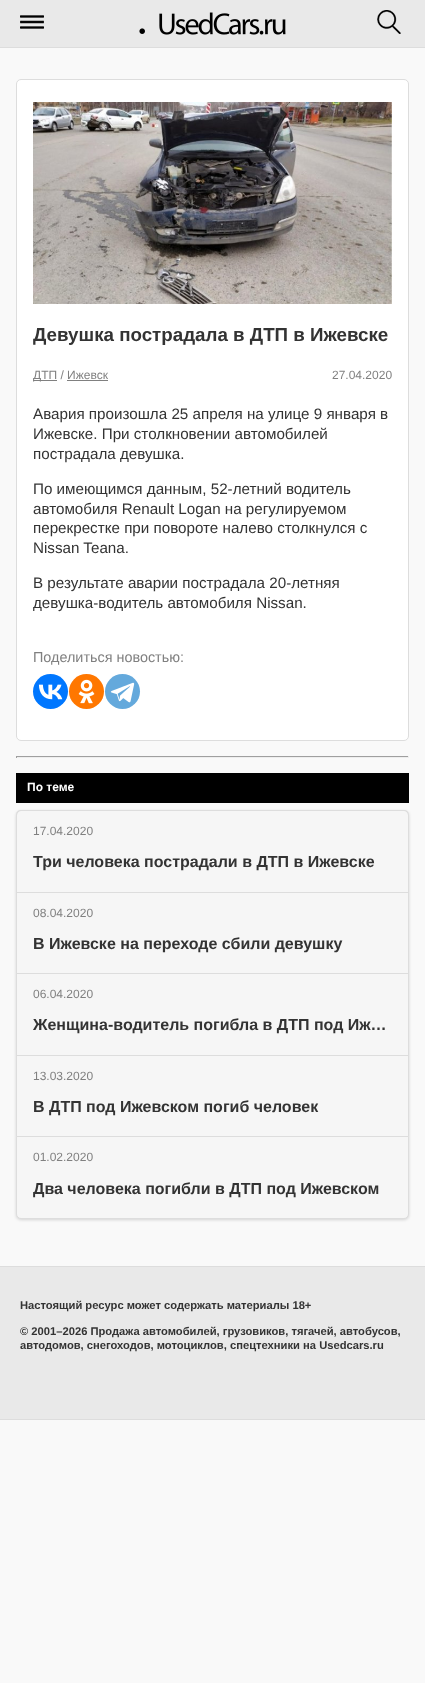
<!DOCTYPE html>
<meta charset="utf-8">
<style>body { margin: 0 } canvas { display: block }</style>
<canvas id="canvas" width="425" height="1683"></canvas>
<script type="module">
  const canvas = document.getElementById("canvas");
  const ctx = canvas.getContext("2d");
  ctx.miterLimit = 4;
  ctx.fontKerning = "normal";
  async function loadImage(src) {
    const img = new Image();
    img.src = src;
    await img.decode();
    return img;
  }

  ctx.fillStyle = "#f9f9f9";
  ctx.fillRect(0, 0, 425, 1683);
  ctx.fillStyle = "#e9e9e9";
  ctx.fillRect(0, 0, 425, 47);
  ctx.fillStyle = "#dddddd";
  ctx.fillRect(0, 47, 425, 1);
  ctx.drawImage(await loadImage("img1.png"), 20, 15, 24, 14);
  ctx.drawImage(await loadImage("img2.png"), 139, 12, 147, 23);
  ctx.drawImage(await loadImage("img3.png"), 377, 10, 24, 24);
  ctx.fillStyle = "#ffffff";
  ctx.beginPath();
  ctx.roundRect(16.5, 79.5, 392, 661, 4.5);
  ctx.fill();
  ctx.strokeStyle = "#dddddd";
  ctx.stroke();
  ctx.drawImage(await loadImage("img4.png"), 33, 102, 359, 202);
  ctx.font = "bold 18.75px Liberation Sans";
  ctx.fillStyle = "#333333";
  ctx.fillText("Девушка пострадала в ДТП в Ижевске", 33, 341);
  ctx.fillStyle = "#808080";
  ctx.fillRect(33, 380, 24, 1);
  ctx.font = "12px Liberation Sans";
  ctx.fillText("ДТП / Ижевск", 33, 379);
  ctx.fillRect(67, 380, 41, 1);
  ctx.fillText("27.04.2020", 332, 379);
  ctx.font = "15.2px Liberation Sans";
  ctx.fillStyle = "#333333";
  ctx.fillText("Авария произошла 25 апреля на улице 9 января в", 33, 419);
  ctx.fillText("Ижевске. При столкновении автомобилей", 33, 439);
  ctx.fillText("пострадала девушка.", 33, 459);
  ctx.fillText("По имеющимся данным, 52-летний водитель", 33, 494);
  ctx.fillText("автомобиля Renault Logan на регулируемом", 33, 514);
  ctx.fillText("перекрестке при повороте налево столкнулся с", 33, 533);
  ctx.fillText("Nissan Teana.", 33, 553);
  ctx.fillText("В результате аварии пострадала 20-летняя", 33, 588);
  ctx.fillText("девушка-водитель автомобиля Nissan.", 33, 608);
  ctx.font = "14.4px Liberation Sans";
  ctx.fillStyle = "#808080";
  ctx.fillText("Поделиться новостью:", 33, 662);
  ctx.fillStyle = "#0077ff";
  ctx.beginPath();
  ctx.arc(50.5, 691.5, 17.5, 0, Math.PI * 2);
  ctx.fill();
  ctx.drawImage(await loadImage("img5.png"), 38, 684, 25, 16);
  ctx.fillStyle = "#ff7700";
  ctx.beginPath();
  ctx.arc(86.5, 691.5, 17.5, 0, Math.PI * 2);
  ctx.fill();
  ctx.drawImage(await loadImage("img6.png"), 78, 679, 17, 25);
  ctx.fillStyle = "#64a9dc";
  ctx.beginPath();
  ctx.arc(122.5, 691.5, 17.5, 0, Math.PI * 2);
  ctx.fill();
  ctx.drawImage(await loadImage("img7.png"), 110, 682, 25, 21);
  ctx.fillStyle = "#9f9f9f";
  ctx.fillRect(16, 756, 393, 1);
  ctx.fillStyle = "#eeeeee";
  ctx.fillRect(408, 756, 1, 2);
  ctx.fillRect(16, 757, 393, 1);
  ctx.fillStyle = "#9f9f9f";
  ctx.fillRect(16, 756, 1, 2);
  ctx.fillStyle = "#000000";
  ctx.fillRect(16, 773, 393, 30);
  ctx.font = "bold 12px Liberation Sans";
  ctx.fillStyle = "#ffffff";
  ctx.fillText("По теме", 27, 791);
  ctx.fillStyle = "rgba(0, 0, 0, 0.15)";
  ctx.filter = "blur(1.5px)";
  ctx.beginPath();
  ctx.roundRect(16, 811, 393, 409, 5);
  ctx.fill();
  ctx.filter = "none";
  ctx.fillStyle = "#f6f6f6";
  ctx.beginPath();
  ctx.roundRect(17, 811, 391, 81, [4, 4, 0, 0]);
  ctx.fill();
  ctx.fillStyle = "#dddddd";
  ctx.beginPath();
  ctx.moveTo(21, 810);
  ctx.lineTo(404, 810);
  ctx.bezierCurveTo(407, 810, 409, 812, 409, 815);
  ctx.lineTo(409, 892);
  ctx.lineTo(16, 892);
  ctx.lineTo(16, 815);
  ctx.bezierCurveTo(16, 812, 18, 810, 21, 810);
  ctx.closePath();
  ctx.moveTo(21, 811);
  ctx.lineTo(404, 811);
  ctx.bezierCurveTo(406, 811, 408, 813, 408, 815);
  ctx.lineTo(408, 892);
  ctx.lineTo(17, 892);
  ctx.lineTo(17, 815);
  ctx.bezierCurveTo(17, 813, 19, 811, 21, 811);
  ctx.closePath();
  ctx.fill("evenodd");
  ctx.font = "12px Liberation Sans";
  ctx.fillStyle = "#808080";
  ctx.fillText("17.04.2020", 33, 835);
  ctx.font = "bold 16px Liberation Sans";
  ctx.fillStyle = "#333333";
  ctx.fillText("Три человека пострадали в ДТП в Ижевске", 33, 867);
  ctx.fillStyle = "#f6f6f6";
  ctx.fillRect(17, 893, 391, 80);
  ctx.fillStyle = "#dddddd";
  ctx.fillRect(16, 892, 393, 1);
  ctx.fillRect(408, 892, 1, 81);
  ctx.fillRect(16, 892, 1, 81);
  ctx.font = "12px Liberation Sans";
  ctx.fillStyle = "#808080";
  ctx.fillText("08.04.2020", 33, 917);
  ctx.font = "bold 16px Liberation Sans";
  ctx.fillStyle = "#333333";
  ctx.fillText("В Ижевске на переходе сбили девушку", 33, 949);
  ctx.fillStyle = "#f6f6f6";
  ctx.fillRect(17, 974, 391, 81);
  ctx.fillStyle = "#dddddd";
  ctx.fillRect(16, 973, 393, 1);
  ctx.fillRect(408, 973, 1, 82);
  ctx.fillRect(16, 973, 1, 82);
  ctx.font = "12px Liberation Sans";
  ctx.fillStyle = "#808080";
  ctx.fillText("06.04.2020", 33, 998);
  ctx.font = "bold 16px Liberation Sans";
  ctx.fillStyle = "#333333";
  ctx.fillText("Женщина-водитель погибла в ДТП под Иж…", 33, 1030);
  ctx.fillStyle = "#f6f6f6";
  ctx.fillRect(17, 1056, 391, 80);
  ctx.fillStyle = "#dddddd";
  ctx.fillRect(16, 1055, 393, 1);
  ctx.fillRect(408, 1055, 1, 81);
  ctx.fillRect(16, 1055, 1, 81);
  ctx.font = "12px Liberation Sans";
  ctx.fillStyle = "#808080";
  ctx.fillText("13.03.2020", 33, 1080);
  ctx.font = "bold 16px Liberation Sans";
  ctx.fillStyle = "#333333";
  ctx.fillText("В ДТП под Ижевском погиб человек", 33, 1112);
  ctx.fillStyle = "#f6f6f6";
  ctx.beginPath();
  ctx.roundRect(16.5, 1136.5, 392, 82, [0, 0, 4.5, 4.5]);
  ctx.fill();
  ctx.stroke();
  ctx.font = "12px Liberation Sans";
  ctx.fillStyle = "#808080";
  ctx.fillText("01.02.2020", 33, 1161);
  ctx.font = "bold 16px Liberation Sans";
  ctx.fillStyle = "#333333";
  ctx.fillText("Два человека погибли в ДТП под Ижевском", 33, 1194);
  ctx.fillStyle = "#e9e9e9";
  ctx.fillRect(0, 1267, 425, 152);
  ctx.fillStyle = "#dddddd";
  ctx.fillRect(0, 1266, 425, 1);
  ctx.fillRect(0, 1419, 425, 1);
  ctx.font = "bold 11.2px Liberation Sans";
  ctx.fillStyle = "#333333";
  ctx.fillText("Настоящий ресурс может содержать материалы 18+", 20, 1309);
  ctx.fillText("© 2001–2026 Продажа автомобилей, грузовиков, тягачей, автобусов,", 20, 1335);
  ctx.fillText("автодомов, снегоходов, мотоциклов, спецтехники на Usedcars.ru", 20, 1349);
</script>
